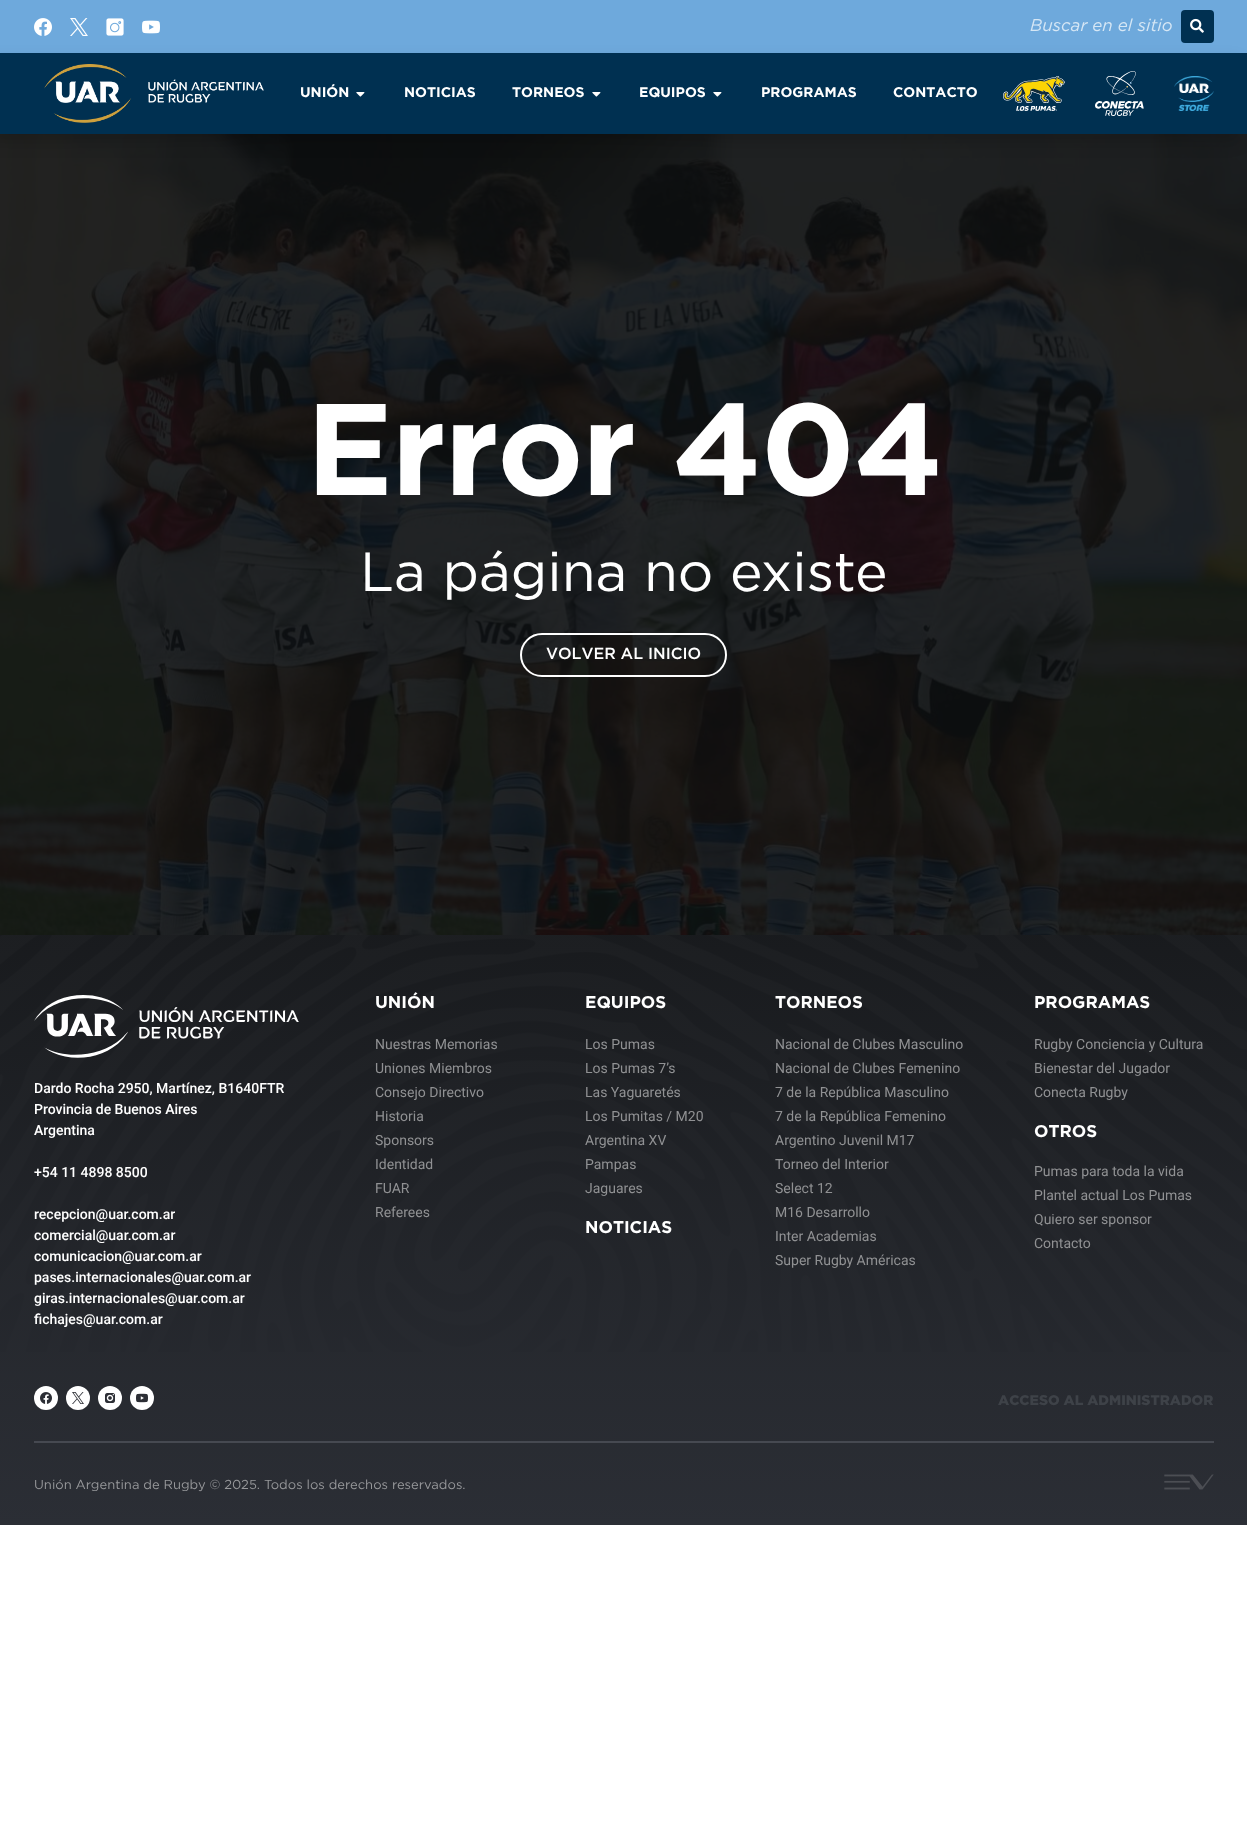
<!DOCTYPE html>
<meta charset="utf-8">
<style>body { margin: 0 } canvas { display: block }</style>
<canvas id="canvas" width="1247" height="1824"></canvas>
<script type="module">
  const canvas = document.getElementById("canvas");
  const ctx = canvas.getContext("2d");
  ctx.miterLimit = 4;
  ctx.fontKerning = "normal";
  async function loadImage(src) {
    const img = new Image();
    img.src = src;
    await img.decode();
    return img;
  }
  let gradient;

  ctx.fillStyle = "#ffffff";
  ctx.fillRect(0, 0, 1247, 1824);
  ctx.fillStyle = "#6ea9dc";
  ctx.fillRect(0, 0, 1247, 53);
  ctx.drawImage(await loadImage("img1.png"), 34, 18, 18, 18);
  ctx.drawImage(await loadImage("img2.png"), 70, 18, 18, 18);
  ctx.drawImage(await loadImage("img3.png"), 106, 18, 18, 18);
  ctx.drawImage(await loadImage("img4.png"), 142, 20, 18, 14);
  ctx.font = "italic 17px Gotham";
  ctx.fillStyle = "#d6e7f5";
  ctx.fillText("Buscar en el sitio", 1030, 31);
  ctx.fillStyle = "#003051";
  ctx.beginPath();
  ctx.roundRect(1181, 10, 33, 33, 4);
  ctx.fill();
  ctx.drawImage(await loadImage("img5.png"), 1190, 18, 14, 15);
  ctx.drawImage(await loadImage("img11.png"), 0, 134, 1247, 801);
  ctx.fillStyle = "rgba(0, 0, 0, 0.15)";
  ctx.filter = "blur(8px)";
  ctx.beginPath();
  ctx.rect(-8, 61, 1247, 81);
  ctx.fill();
  ctx.filter = "none";
  ctx.fillStyle = "#003051";
  ctx.fillRect(0, 53, 1247, 81);
  ctx.drawImage(await loadImage("img6.png"), 44, 64, 220, 59);
  ctx.font = "bold 14px Gotham";
  ctx.fillStyle = "#ffffff";
  ctx.fillText("UNIÓN", 300, 97);
  ctx.drawImage(await loadImage("img7.png"), 356, 92, 9, 5);
  ctx.fillText("NOTICIAS", 404, 97);
  ctx.fillText("TORNEOS", 512, 97);
  ctx.drawImage(await loadImage("img7.png"), 592, 92, 9, 5);
  ctx.fillText("EQUIPOS", 639, 97);
  ctx.drawImage(await loadImage("img7.png"), 713, 92, 9, 5);
  ctx.fillText("PROGRAMAS", 761, 97);
  ctx.fillText("CONTACTO", 893, 97);
  ctx.drawImage(await loadImage("img8.png"), 1003, 76, 62, 35);
  ctx.drawImage(await loadImage("img9.png"), 1095, 71, 49, 45);
  ctx.drawImage(await loadImage("img10.png"), 1174, 76, 40, 35);
  ctx.letterSpacing = "-1.5px";
  ctx.font = "bold 130px Gotham";
  ctx.fillText("Error 404", 306, 495);
  ctx.letterSpacing = "0px";
  ctx.font = "55px Gotham";
  ctx.fillText("La página no existe", 360, 591);
  ctx.beginPath();
  ctx.roundRect(521, 634, 205, 42, 21);
  ctx.strokeStyle = "#ffffff";
  ctx.lineWidth = 2;
  ctx.stroke();
  ctx.font = "500 16px Gotham";
  ctx.fillText("VOLVER AL INICIO", 546, 659);
  ctx.fillStyle = "#2c2e35";
  ctx.fillRect(0, 935, 1247, 417);
  ctx.drawImage(await loadImage("img12.png"), 0, 935, 1247, 417);
  gradient = ctx.createLinearGradient(624, 935, 624, 1525);
  gradient.addColorStop(0, "rgba(24, 26, 29, 0.98)");
  gradient.addColorStop(1, "#2b2e35");
  ctx.fillStyle = gradient;
  ctx.fillRect(0, 935, 1247, 590);
  ctx.drawImage(await loadImage("img13.png"), 34, 995, 265, 63);
  ctx.font = "500 14px Roboto";
  ctx.fillStyle = "#ffffff";
  ctx.fillText("Dardo Rocha 2950, Martínez, B1640FTR", 34, 1093);
  ctx.fillText("Provincia de Buenos Aires", 34, 1114);
  ctx.fillText("Argentina", 34, 1135);
  ctx.fillText("+54 11 4898 8500", 34, 1177);
  ctx.fillText("recepcion@uar.com.ar", 34, 1219);
  ctx.fillText("comercial@uar.com.ar", 34, 1240);
  ctx.fillText("comunicacion@uar.com.ar", 34, 1261);
  ctx.fillText("pases.internacionales@uar.com.ar", 34, 1282);
  ctx.fillText("giras.internacionales@uar.com.ar", 34, 1303);
  ctx.fillText("fichajes@uar.com.ar", 34, 1324);
  ctx.font = "bold 17px Gotham";
  ctx.fillText("UNIÓN", 375, 1008);
  ctx.font = "14px Roboto";
  ctx.fillStyle = "#909193";
  ctx.fillText("Nuestras Memorias", 375, 1049);
  ctx.fillText("Uniones Miembros", 375, 1073);
  ctx.fillText("Consejo Directivo", 375, 1097);
  ctx.fillText("Historia", 375, 1121);
  ctx.fillText("Sponsors", 375, 1145);
  ctx.fillText("Identidad", 375, 1169);
  ctx.fillText("FUAR", 375, 1193);
  ctx.fillText("Referees", 375, 1217);
  ctx.font = "bold 17px Gotham";
  ctx.fillStyle = "#ffffff";
  ctx.fillText("EQUIPOS", 585, 1008);
  ctx.font = "14px Roboto";
  ctx.fillStyle = "#909193";
  ctx.fillText("Los Pumas", 585, 1049);
  ctx.fillText("Los Pumas 7’s", 585, 1073);
  ctx.fillText("Las Yaguaretés", 585, 1097);
  ctx.fillText("Los Pumitas / M20", 585, 1121);
  ctx.fillText("Argentina XV", 585, 1145);
  ctx.fillText("Pampas", 585, 1169);
  ctx.fillText("Jaguares", 585, 1193);
  ctx.font = "bold 17px Gotham";
  ctx.fillStyle = "#ffffff";
  ctx.fillText("NOTICIAS", 585, 1233);
  ctx.fillText("TORNEOS", 775, 1008);
  ctx.font = "14px Roboto";
  ctx.fillStyle = "#909193";
  ctx.fillText("Nacional de Clubes Masculino", 775, 1049);
  ctx.fillText("Nacional de Clubes Femenino", 775, 1073);
  ctx.fillText("7 de la República Masculino", 775, 1097);
  ctx.fillText("7 de la República Femenino", 775, 1121);
  ctx.fillText("Argentino Juvenil M17", 775, 1145);
  ctx.fillText("Torneo del Interior", 775, 1169);
  ctx.fillText("Select 12", 775, 1193);
  ctx.fillText("M16 Desarrollo", 775, 1217);
  ctx.fillText("Inter Academias", 775, 1241);
  ctx.fillText("Super Rugby Américas", 775, 1265);
  ctx.font = "bold 17px Gotham";
  ctx.fillStyle = "#ffffff";
  ctx.fillText("PROGRAMAS", 1034, 1008);
  ctx.font = "14px Roboto";
  ctx.fillStyle = "#909193";
  ctx.fillText("Rugby Conciencia y Cultura", 1034, 1049);
  ctx.fillText("Bienestar del Jugador", 1034, 1073);
  ctx.fillText("Conecta Rugby", 1034, 1097);
  ctx.font = "bold 17px Gotham";
  ctx.fillStyle = "#ffffff";
  ctx.fillText("OTROS", 1034, 1137);
  ctx.font = "14px Roboto";
  ctx.fillStyle = "#909193";
  ctx.fillText("Pumas para toda la vida", 1034, 1176);
  ctx.fillText("Plantel actual Los Pumas", 1034, 1200);
  ctx.fillText("Quiero ser sponsor", 1034, 1224);
  ctx.fillText("Contacto", 1034, 1248);
  ctx.fillStyle = "#ffffff";
  ctx.beginPath();
  ctx.arc(46, 1398, 12, 0, Math.PI * 2);
  ctx.fill();
  ctx.drawImage(await loadImage("img14.png"), 40, 1392, 12, 12);
  ctx.beginPath();
  ctx.arc(78, 1398, 12, 0, Math.PI * 2);
  ctx.fill();
  ctx.drawImage(await loadImage("img15.png"), 72, 1392, 12, 12);
  ctx.beginPath();
  ctx.arc(110, 1398, 12, 0, Math.PI * 2);
  ctx.fill();
  ctx.drawImage(await loadImage("img16.png"), 105, 1393, 10, 10);
  ctx.beginPath();
  ctx.arc(142, 1398, 12, 0, Math.PI * 2);
  ctx.fill();
  ctx.drawImage(await loadImage("img17.png"), 136, 1393, 12, 10);
  ctx.font = "900 14px Gotham";
  ctx.fillStyle = "#3e4248";
  ctx.fillText("ACCESO AL ADMINISTRADOR", 998, 1405);
  ctx.fillStyle = "#464951";
  ctx.fillRect(34, 1441, 1180, 2);
  ctx.font = "13px Gotham";
  ctx.fillStyle = "#97989b";
  ctx.fillText("Unión Argentina de Rugby © 2025. Todos los derechos reservados.", 34, 1489);
  ctx.drawImage(await loadImage("img18.png"), 1164, 1474, 50, 16);
</script>
